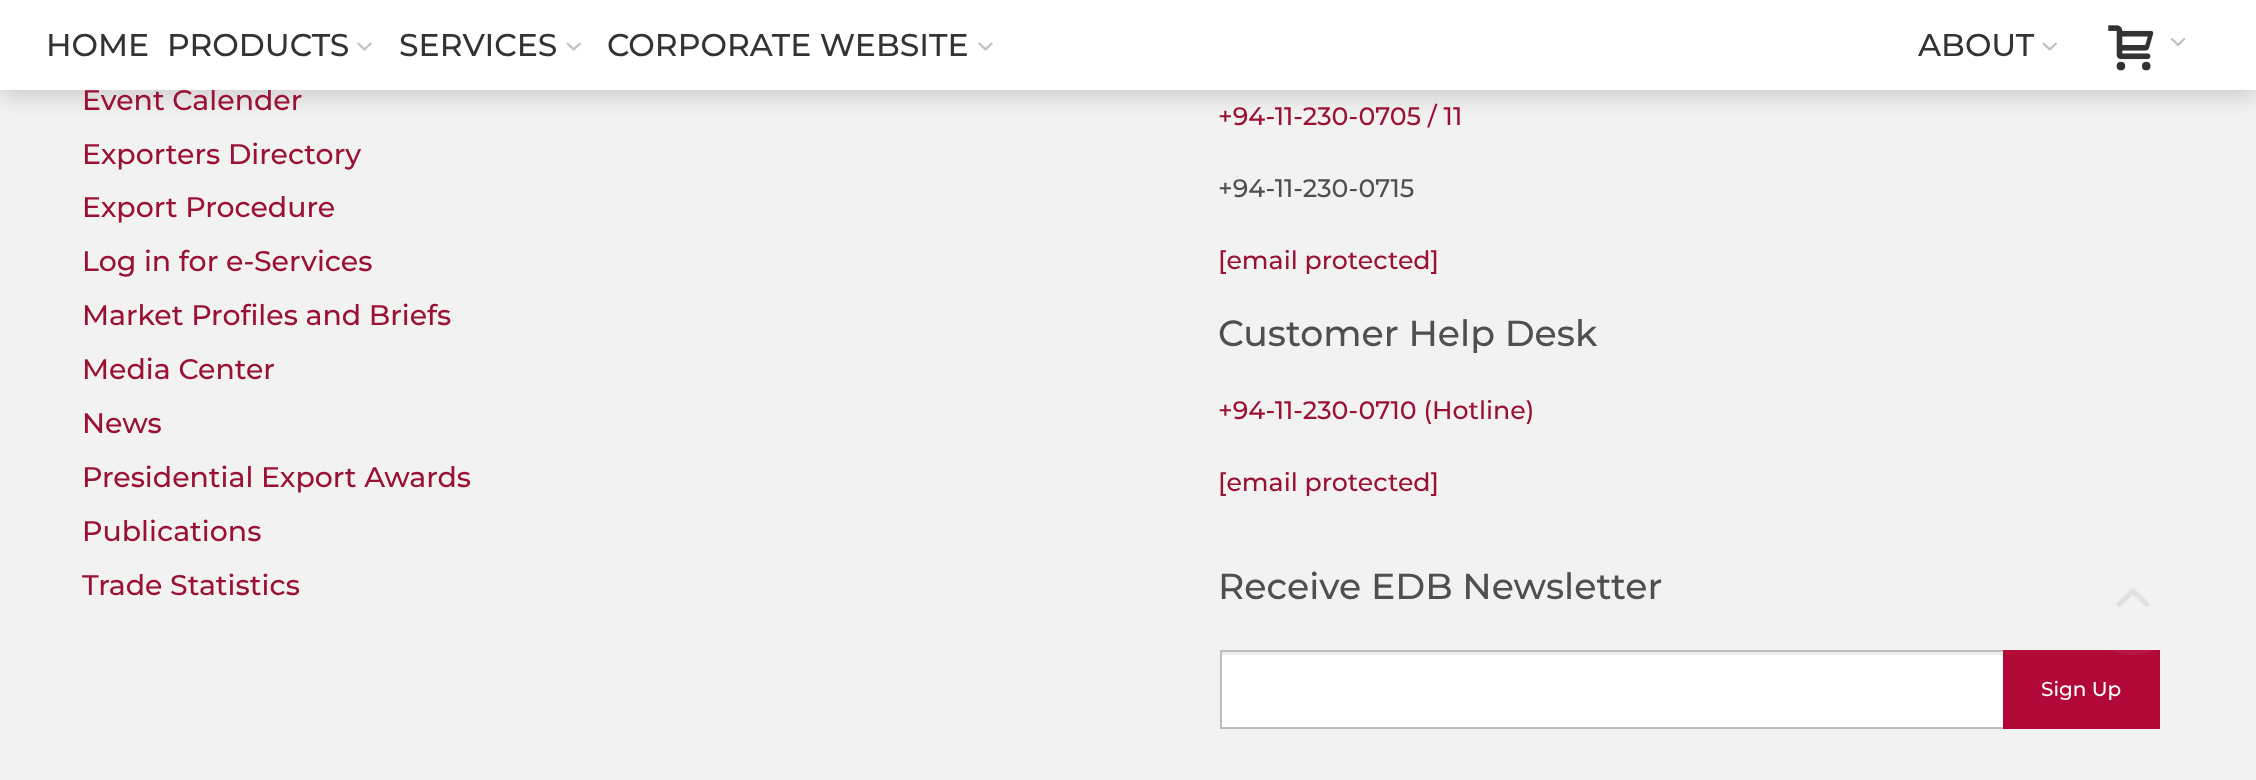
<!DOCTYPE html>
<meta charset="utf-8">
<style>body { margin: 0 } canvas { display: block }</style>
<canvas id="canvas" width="2256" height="780"></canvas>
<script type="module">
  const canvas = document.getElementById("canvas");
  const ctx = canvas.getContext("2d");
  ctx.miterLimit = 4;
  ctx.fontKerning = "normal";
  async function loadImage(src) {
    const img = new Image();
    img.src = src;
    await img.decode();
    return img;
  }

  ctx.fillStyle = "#f2f2f2";
  ctx.fillRect(0, 0, 2256, 780);
  ctx.fillStyle = "rgba(0, 0, 0, 0.15)";
  ctx.filter = "blur(11px)";
  ctx.beginPath();
  ctx.rect(0, 7, 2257, 90);
  ctx.fill();
  ctx.filter = "none";
  ctx.font = "500 28.4px Montserrat";
  ctx.fillStyle = "#9a1135";
  ctx.fillText("Event Calender", 82, 110);
  ctx.fillStyle = "#ffffff";
  ctx.fillRect(0, 0, 2256, 90);
  ctx.font = "500 31.5px Montserrat";
  ctx.fillStyle = "#333333";
  ctx.fillText("HOME", 46, 56);
  ctx.fillText("PRODUCTS", 167, 56);
  ctx.drawImage(await loadImage("img1.png"), 357, 42, 15, 9);
  ctx.fillText("SERVICES", 399, 56);
  ctx.drawImage(await loadImage("img2.png"), 566, 42, 15, 9);
  ctx.fillText("CORPORATE WEBSITE", 607, 56);
  ctx.drawImage(await loadImage("img1.png"), 978, 42, 15, 9);
  ctx.fillText("ABOUT", 1918, 56);
  ctx.drawImage(await loadImage("img2.png"), 2042, 42, 15, 9);
  ctx.drawImage(await loadImage("img3.png"), 2108, 25, 46, 46);
  ctx.drawImage(await loadImage("img4.png"), 2170, 38, 16, 8);
  ctx.font = "500 28.4px Montserrat";
  ctx.fillStyle = "#9a1135";
  ctx.fillText("Exporters Directory", 82, 164);
  ctx.fillText("Export Procedure", 82, 217);
  ctx.fillText("Log in for e-Services", 82, 271);
  ctx.fillText("Market Profiles and Briefs", 82, 325);
  ctx.fillText("Media Center", 82, 379);
  ctx.fillText("News", 82, 433);
  ctx.fillText("Presidential Export Awards", 82, 487);
  ctx.fillText("Publications", 82, 541);
  ctx.fillText("Trade Statistics", 82, 595);
  ctx.font = "500 25.25px Montserrat";
  ctx.fillText("+94-11-230-0705 / 11", 1218, 125);
  ctx.fillStyle = "#4f4f4f";
  ctx.fillText("+94-11-230-0715", 1218, 197);
  ctx.fillStyle = "#9a1135";
  ctx.fillText("[email protected]", 1218, 269);
  ctx.font = "500 36.25px Montserrat";
  ctx.fillStyle = "#4f4f4f";
  ctx.fillText("Customer Help Desk", 1218, 346);
  ctx.font = "500 25.25px Montserrat";
  ctx.fillStyle = "#9a1135";
  ctx.fillText("+94-11-230-0710 (Hotline)", 1218, 419);
  ctx.fillText("[email protected]", 1218, 491);
  ctx.font = "500 36.25px Montserrat";
  ctx.fillStyle = "#4f4f4f";
  ctx.fillText("Receive EDB Newsletter", 1218, 599);
  ctx.fillStyle = "#ffffff";
  ctx.fillRect(1222, 655, 781, 72);
  ctx.fillStyle = "#ececec";
  ctx.fillRect(1222, 653, 781, 2);
  ctx.strokeStyle = "#bdbdbd";
  ctx.lineWidth = 2;
  ctx.strokeRect(1221, 651, 783, 77);
  ctx.fillStyle = "#b20837";
  ctx.fillRect(2003, 650, 157, 79);
  ctx.font = "500 20px Montserrat";
  ctx.fillStyle = "#ffffff";
  ctx.fillText("Sign Up", 2041, 696);
  ctx.fillStyle = "rgba(255, 255, 255, 0.07)";
  ctx.beginPath();
  ctx.roundRect(2077, 542, 112, 113, 56);
  ctx.fill();
  ctx.drawImage(await loadImage("img5.png"), 2116, 588, 34, 19);
</script>
